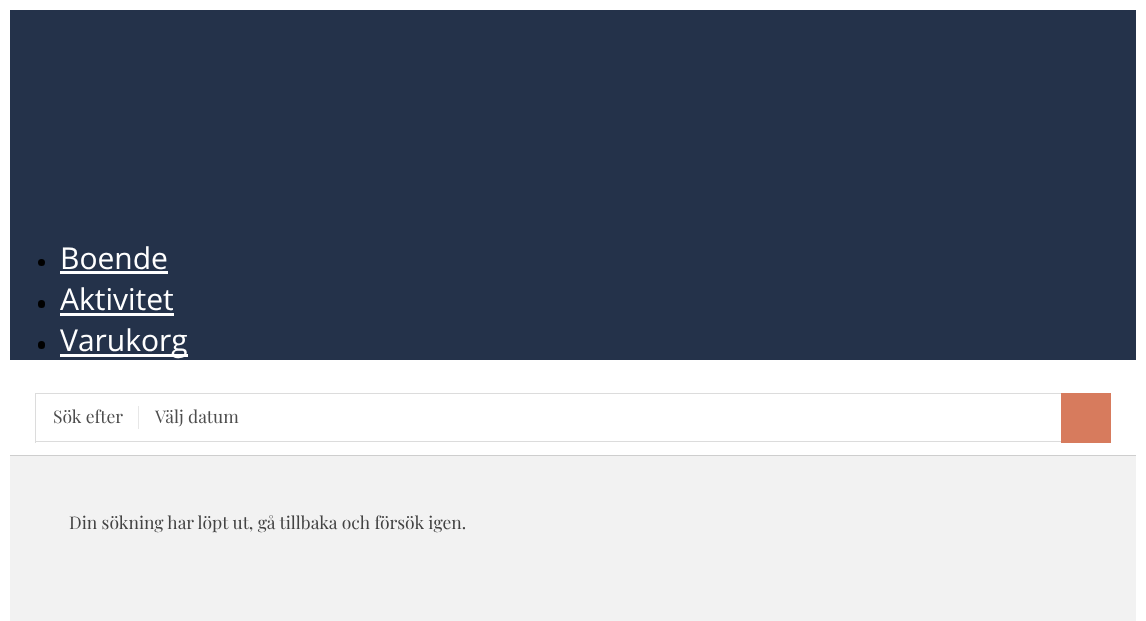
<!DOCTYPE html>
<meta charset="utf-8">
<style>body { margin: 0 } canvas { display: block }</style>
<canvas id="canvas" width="1146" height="621"></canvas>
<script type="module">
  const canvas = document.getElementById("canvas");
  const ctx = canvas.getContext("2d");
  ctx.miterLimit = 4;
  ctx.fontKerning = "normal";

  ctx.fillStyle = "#ffffff";
  ctx.fillRect(0, 0, 1146, 621);
  ctx.fillStyle = "#24324a";
  ctx.fillRect(10, 10, 1126, 350);
  ctx.fillStyle = "#000000";
  ctx.beginPath();
  ctx.arc(41.5, 262.5, 3.5, 0, Math.PI * 2);
  ctx.fill();
  ctx.font = "30px Open Sans";
  ctx.fillStyle = "#ffffff";
  ctx.fillText("Boende", 60, 269);
  ctx.fillRect(60, 271, 108, 3);
  ctx.fillStyle = "#000000";
  ctx.beginPath();
  ctx.roundRect(38, 300, 7, 8, 3.5);
  ctx.fill();
  ctx.fillStyle = "#ffffff";
  ctx.fillText("Aktivitet", 60, 310);
  ctx.fillRect(60, 313, 114, 3);
  ctx.fillStyle = "#000000";
  ctx.beginPath();
  ctx.roundRect(38, 341, 7, 8, 3.5);
  ctx.fill();
  ctx.fillStyle = "#ffffff";
  ctx.fillRect(60, 354, 128, 3);
  ctx.fillText("Varukorg", 60, 351);
  ctx.fillStyle = "#f2f2f2";
  ctx.fillRect(10, 456, 1126, 165);
  ctx.fillStyle = "#cecece";
  ctx.fillRect(10, 455, 1126, 1);
  ctx.fillStyle = "#dcdcdc";
  ctx.fillRect(35, 393, 1026, 1);
  ctx.fillRect(35, 441, 1026, 1);
  ctx.fillRect(35, 393, 1, 50);
  ctx.font = "17.5px Playfair Display";
  ctx.fillStyle = "#4d4d4d";
  ctx.fillText("Sök efter", 53, 423);
  ctx.fillStyle = "#e7e7e7";
  ctx.fillRect(138, 406, 1, 23);
  ctx.fillStyle = "#4d4d4d";
  ctx.fillText("Välj datum", 155, 423);
  ctx.fillStyle = "#d77b5d";
  ctx.fillRect(1061, 393, 50, 50);
  ctx.fillStyle = "#434343";
  ctx.fillText("Din sökning har löpt ut, gå tillbaka och försök igen.", 69, 529);
</script>
